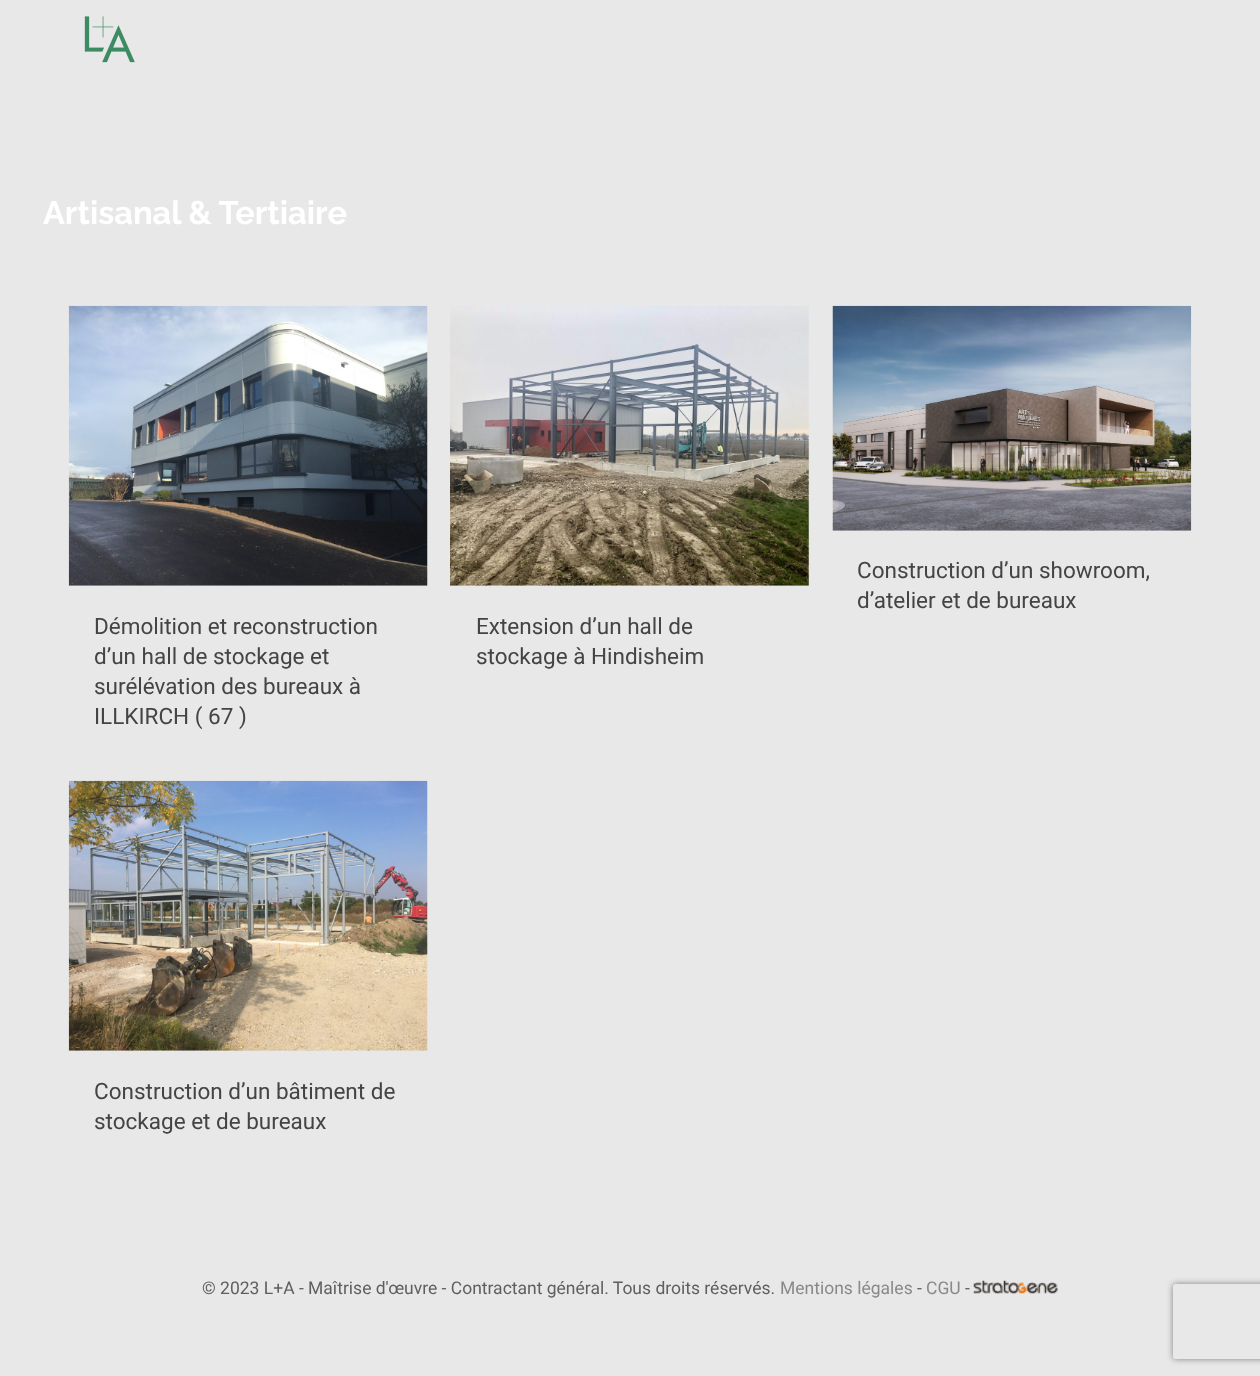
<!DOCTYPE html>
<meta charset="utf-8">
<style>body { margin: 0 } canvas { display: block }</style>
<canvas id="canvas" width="1260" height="1376"></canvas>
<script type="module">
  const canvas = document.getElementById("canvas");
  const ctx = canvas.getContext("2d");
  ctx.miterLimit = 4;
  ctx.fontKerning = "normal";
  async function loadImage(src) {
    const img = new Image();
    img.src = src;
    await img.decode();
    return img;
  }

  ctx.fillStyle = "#e8e8e8";
  ctx.fillRect(0, 0, 1260, 1376);
  ctx.drawImage(await loadImage("img1.png"), 84, 16, 51, 47);
  ctx.font = "bold 32.5px Raleway";
  ctx.fillStyle = "#ffffff";
  ctx.fillText("Artisanal & Tertiaire", 43, 224);
  ctx.drawImage(await loadImage("img2.png"), 832, 305, 360, 226);
  ctx.font = "22.5px Roboto";
  ctx.fillStyle = "#444444";
  ctx.fillText("Construction d’un showroom,", 857, 578);
  ctx.fillText("d’atelier et de bureaux", 857, 608);
  ctx.drawImage(await loadImage("img3.png"), 68, 305, 360, 281);
  ctx.fillText("Démolition et reconstruction", 94, 634);
  ctx.fillText("d’un hall de stockage et", 94, 664);
  ctx.fillText("surélévation des bureaux à", 94, 694);
  ctx.fillText("ILLKIRCH ( 67 )", 94, 724);
  ctx.drawImage(await loadImage("img4.png"), 450, 306, 359, 280);
  ctx.fillText("Extension d’un hall de", 476, 634);
  ctx.fillText("stockage à Hindisheim", 476, 664);
  ctx.drawImage(await loadImage("img5.png"), 68, 780, 360, 271);
  ctx.fillText("Construction d’un bâtiment de", 94, 1099);
  ctx.fillText("stockage et de bureaux", 94, 1129);
  ctx.font = "17.5px Roboto";
  ctx.fillStyle = "#5f5f5f";
  ctx.fillText("© 2023 L+A - Maîtrise d'œuvre - Contractant général. Tous droits réservés.", 202, 1294);
  ctx.fillStyle = "#898989";
  ctx.fillText("Mentions légales", 780, 1294);
  ctx.fillStyle = "#5f5f5f";
  ctx.fillText("-", 917, 1294);
  ctx.fillStyle = "#898989";
  ctx.fillText("CGU", 926, 1294);
  ctx.fillStyle = "#5f5f5f";
  ctx.fillText("-", 965, 1294);
  ctx.drawImage(await loadImage("img6.png"), 973, 1280, 85, 14);
  ctx.save();
  ctx.beginPath();
  ctx.moveTo(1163, 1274);
  ctx.lineTo(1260, 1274);
  ctx.lineTo(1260, 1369);
  ctx.lineTo(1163, 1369);
  ctx.closePath();
  ctx.moveTo(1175.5, 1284);
  ctx.lineTo(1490.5, 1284);
  ctx.bezierCurveTo(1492, 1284, 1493, 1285, 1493, 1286.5);
  ctx.lineTo(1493, 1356.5);
  ctx.bezierCurveTo(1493, 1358, 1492, 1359, 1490.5, 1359);
  ctx.lineTo(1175.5, 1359);
  ctx.bezierCurveTo(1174, 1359, 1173, 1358, 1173, 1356.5);
  ctx.lineTo(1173, 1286.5);
  ctx.bezierCurveTo(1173, 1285, 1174, 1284, 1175.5, 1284);
  ctx.closePath();
  ctx.clip("evenodd");
  ctx.fillStyle = "#808080";
  ctx.filter = "blur(3px)";
  ctx.beginPath();
  ctx.roundRect(1173, 1284, 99, 75, 2.5);
  ctx.fill();
  ctx.filter = "none";
  ctx.restore();
</script>
